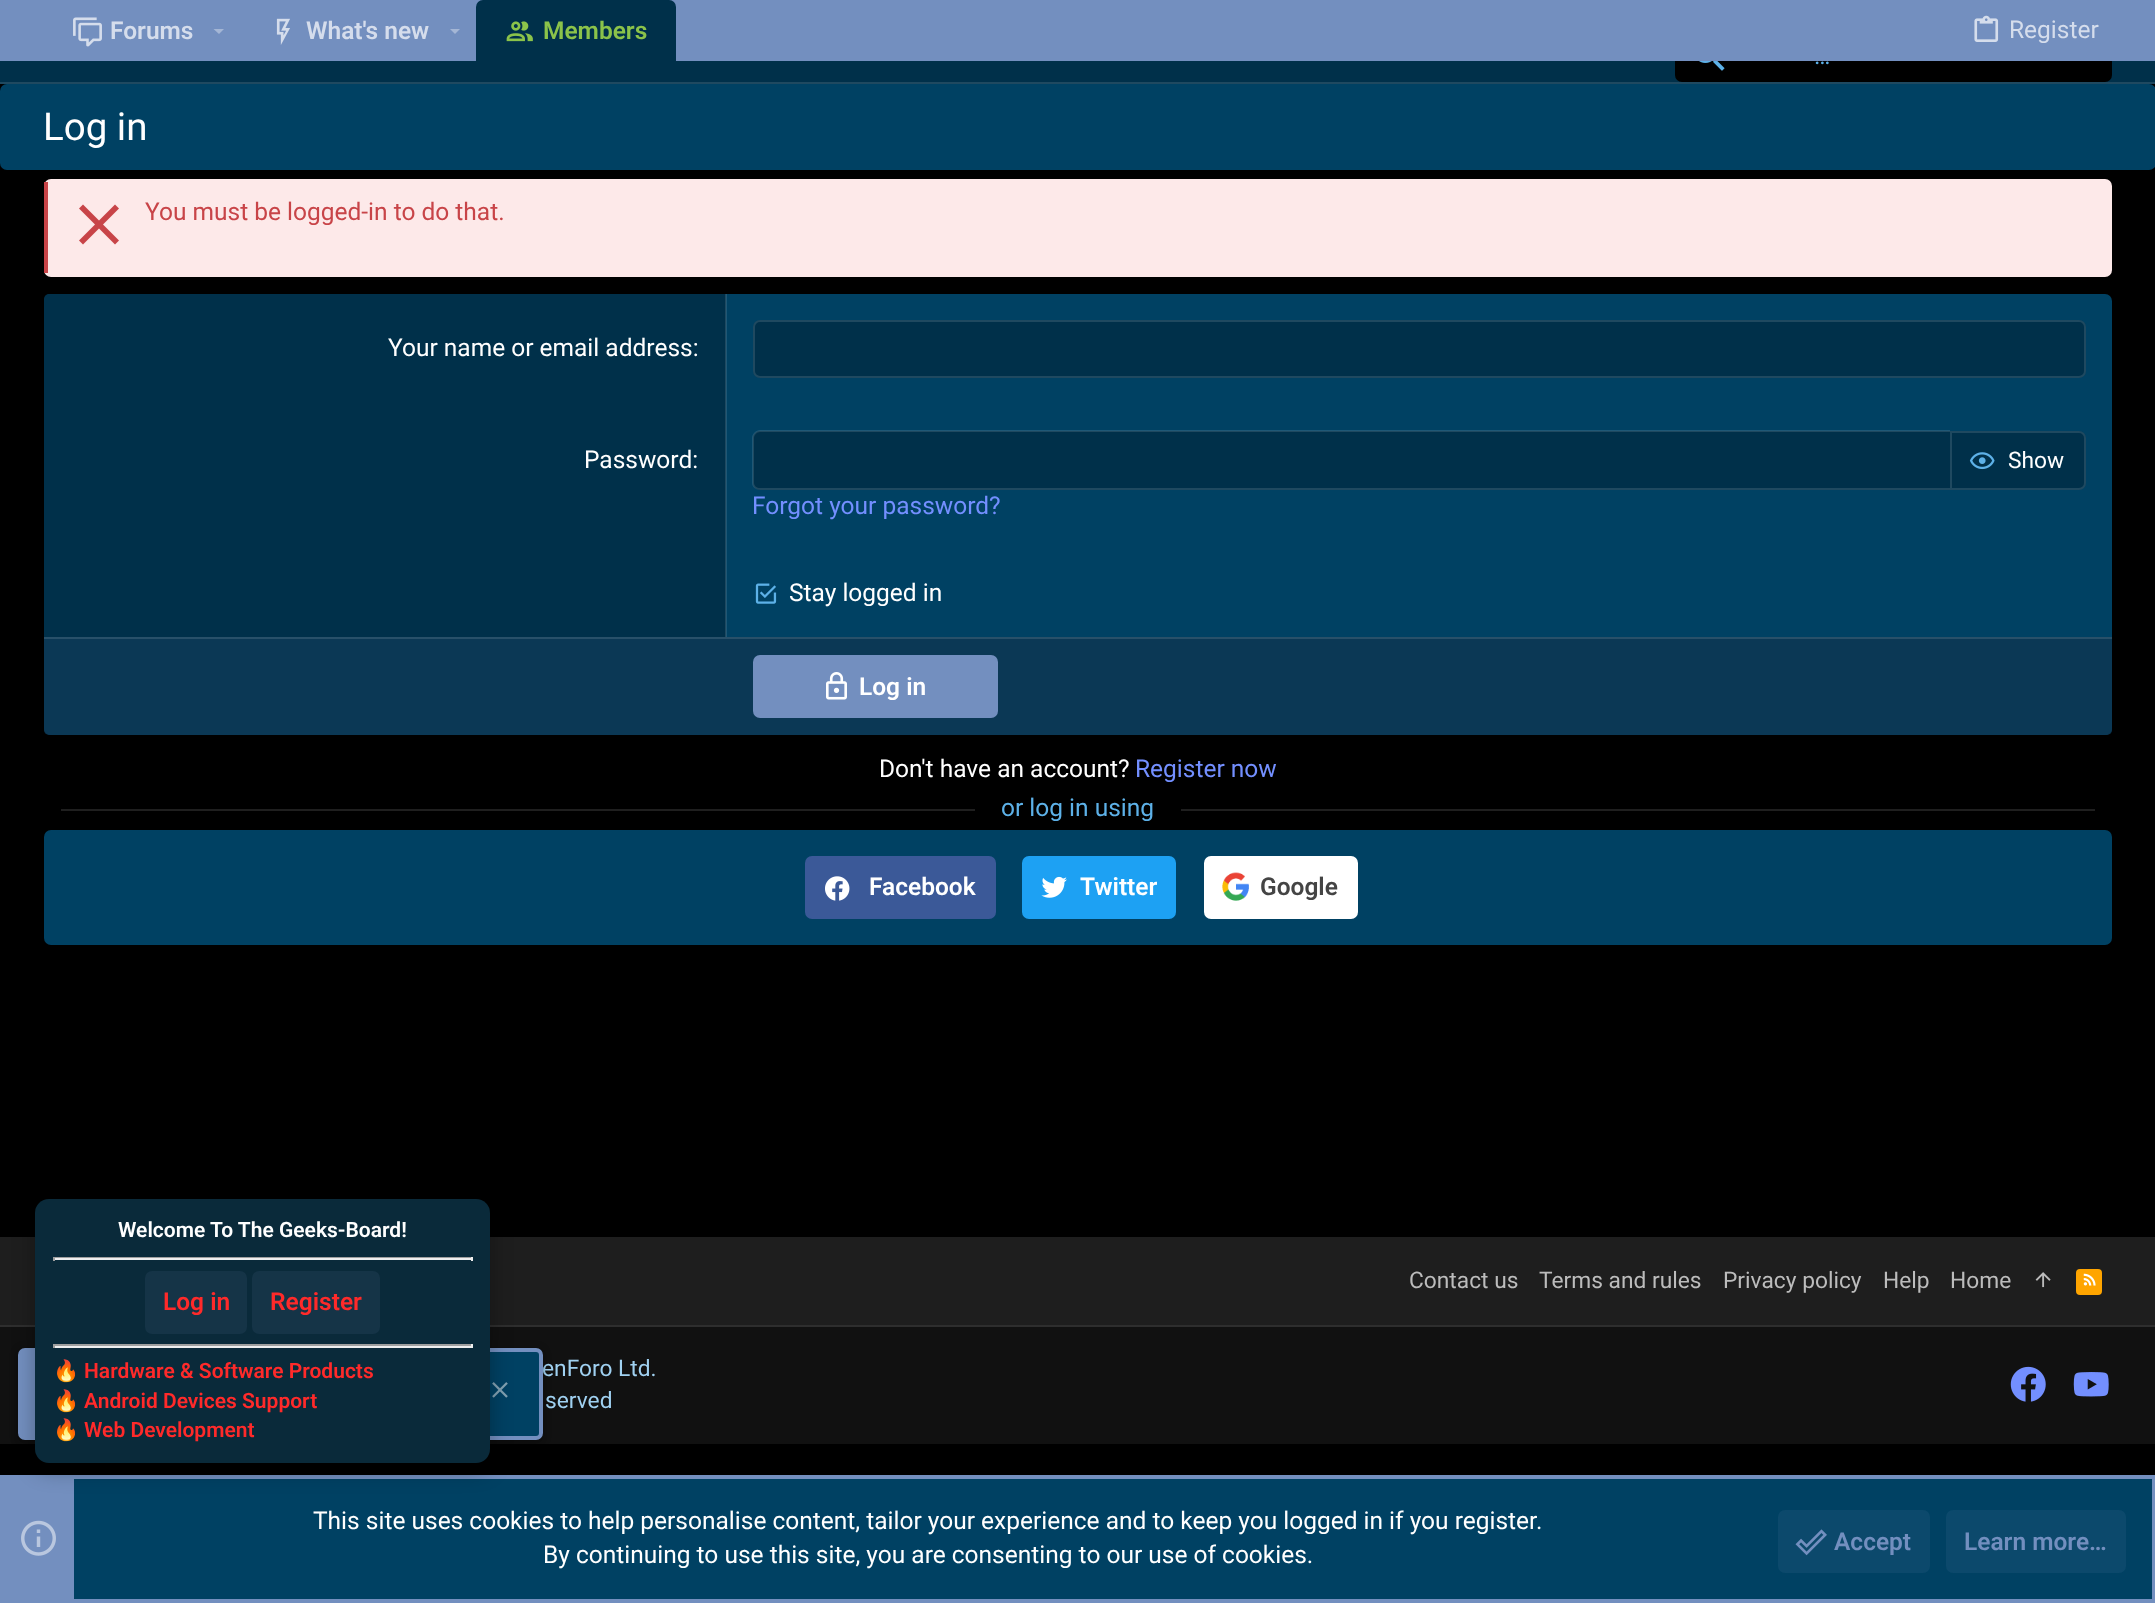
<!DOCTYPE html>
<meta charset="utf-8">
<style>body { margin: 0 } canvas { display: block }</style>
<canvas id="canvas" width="2155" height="1603"></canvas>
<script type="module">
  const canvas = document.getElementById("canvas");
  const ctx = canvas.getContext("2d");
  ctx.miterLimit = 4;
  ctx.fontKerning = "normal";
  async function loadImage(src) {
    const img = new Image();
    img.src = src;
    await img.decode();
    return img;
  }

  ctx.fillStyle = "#000000";
  ctx.fillRect(0, 0, 2155, 1603);
  ctx.fillStyle = "#00304a";
  ctx.fillRect(0, 61, 2155, 21);
  ctx.fillStyle = "#000000";
  ctx.beginPath();
  ctx.roundRect(1675, 30, 437, 52, 7);
  ctx.fill();
  ctx.fillStyle = "#738fbf";
  ctx.fillRect(0, 0, 2155, 61);
  ctx.drawImage(await loadImage("img1.png"), 73, 17, 29, 30);
  ctx.font = "600 24.5px Roboto";
  ctx.fillStyle = "#d5ddec";
  ctx.fillText("Forums", 110, 39);
  ctx.fillStyle = "#a4b6d5";
  ctx.beginPath();
  ctx.moveTo(213.5, 29);
  ctx.lineTo(219, 34);
  ctx.lineTo(224, 29);
  ctx.closePath();
  ctx.fill();
  ctx.drawImage(await loadImage("img2.png"), 276, 18, 14, 27);
  ctx.fillStyle = "#d5ddec";
  ctx.fillText("What's new", 306, 39);
  ctx.fillStyle = "#a4b6d5";
  ctx.beginPath();
  ctx.moveTo(450, 29);
  ctx.lineTo(455, 34);
  ctx.lineTo(460, 29);
  ctx.closePath();
  ctx.fill();
  ctx.fillStyle = "#00304a";
  ctx.beginPath();
  ctx.roundRect(476, 0, 200, 61, [7, 7, 0, 0]);
  ctx.fill();
  ctx.drawImage(await loadImage("img3.png"), 506, 21, 27, 21);
  ctx.fillStyle = "#8bc34a";
  ctx.fillText("Members", 543, 39);
  ctx.drawImage(await loadImage("img4.png"), 1974, 15, 25, 27);
  ctx.font = "24.5px Roboto";
  ctx.fillStyle = "#d5ddec";
  ctx.fillText("Register", 2009, 38);
  ctx.fillStyle = "#1f4960";
  ctx.fillRect(0, 82, 2155, 2);
  ctx.drawImage(await loadImage("img5.png"), 1699, 61, 26, 10);
  ctx.fillStyle = "#5db1e8";
  ctx.fillText("…", 1814, 64);
  ctx.fillStyle = "#004163";
  ctx.beginPath();
  ctx.roundRect(0, 84, 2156, 86, 7);
  ctx.fill();
  ctx.font = "38.5px Roboto";
  ctx.fillStyle = "#ffffff";
  ctx.fillText("Log in", 43, 140);
  ctx.fillStyle = "#fde9e9";
  ctx.beginPath();
  ctx.roundRect(44, 179, 2068, 98, 7);
  ctx.fill();
  ctx.fillStyle = "#c84448";
  ctx.fillRect(44, 182, 4, 91);
  ctx.beginPath();
  ctx.moveTo(119, 208.5);
  ctx.lineTo(115, 204.5);
  ctx.lineTo(99, 220.5);
  ctx.lineTo(83, 204.5);
  ctx.lineTo(79, 208.5);
  ctx.lineTo(95, 224.5);
  ctx.lineTo(79, 240.5);
  ctx.lineTo(83, 244.5);
  ctx.lineTo(99, 228.5);
  ctx.lineTo(115, 244.5);
  ctx.lineTo(119, 240.5);
  ctx.lineTo(103, 224.5);
  ctx.closePath();
  ctx.fill();
  ctx.font = "24.5px Roboto";
  ctx.fillText("You must be logged-in to do that.", 145, 220);
  ctx.fillStyle = "#004163";
  ctx.beginPath();
  ctx.roundRect(44, 294, 2068, 441, 7);
  ctx.fill();
  ctx.fillStyle = "#1f5876";
  ctx.fillRect(726, 294, 1, 343);
  ctx.fillStyle = "#00304a";
  ctx.beginPath();
  ctx.roundRect(44, 294, 682, 110, [5, 0, 0, 0]);
  ctx.fill();
  ctx.fillStyle = "#1f4960";
  ctx.fillRect(725, 294, 1, 343);
  ctx.fillStyle = "#ffffff";
  ctx.fillText("Your name or email address:", 388, 356);
  ctx.fillStyle = "#00304a";
  ctx.beginPath();
  ctx.roundRect(753, 320, 1333, 58, 7);
  ctx.fill();
  ctx.beginPath();
  ctx.roundRect(754, 321, 1331, 56, 6);
  ctx.strokeStyle = "rgba(255, 255, 255, 0.12)";
  ctx.lineWidth = 2;
  ctx.stroke();
  ctx.fillRect(44, 404, 681, 233);
  ctx.fillStyle = "#ffffff";
  ctx.fillText("Password:", 584, 468);
  ctx.fillStyle = "#00304a";
  ctx.beginPath();
  ctx.roundRect(753, 431, 1197, 59, [7, 0, 0, 7]);
  ctx.fill();
  ctx.fillStyle = "rgba(255, 255, 255, 0.12)";
  ctx.beginPath();
  ctx.moveTo(760, 430);
  ctx.lineTo(1950, 430);
  ctx.lineTo(1950, 490);
  ctx.lineTo(760, 490);
  ctx.bezierCurveTo(756, 490, 752, 487, 752, 483);
  ctx.lineTo(752, 438);
  ctx.bezierCurveTo(752, 434, 756, 430, 760, 430);
  ctx.closePath();
  ctx.moveTo(760, 432);
  ctx.lineTo(1950, 432);
  ctx.lineTo(1950, 488);
  ctx.lineTo(760, 488);
  ctx.bezierCurveTo(757, 488, 754, 486, 754, 483);
  ctx.lineTo(754, 438);
  ctx.bezierCurveTo(754, 435, 757, 432, 760, 432);
  ctx.closePath();
  ctx.fill("evenodd");
  ctx.fillStyle = "#00304a";
  ctx.beginPath();
  ctx.roundRect(1950, 431, 136, 59, [0, 7, 7, 0]);
  ctx.fill();
  ctx.beginPath();
  ctx.roundRect(1951, 432, 134, 57, [0, 6, 6, 0]);
  ctx.stroke();
  ctx.drawImage(await loadImage("img6.png"), 1969, 452, 26, 18);
  ctx.font = "22.75px Roboto";
  ctx.fillStyle = "#ffffff";
  ctx.fillText("Show", 2008, 468);
  ctx.font = "24.5px Roboto";
  ctx.fillStyle = "#738fff";
  ctx.fillText("Forgot your password?", 752, 514);
  ctx.drawImage(await loadImage("img7.png"), 755, 583, 22, 21);
  ctx.fillStyle = "#ffffff";
  ctx.fillText("Stay logged in", 789, 601);
  ctx.fillStyle = "rgba(12, 55, 83, 0.9)";
  ctx.beginPath();
  ctx.roundRect(44, 637, 2068, 98, [0, 0, 5, 5]);
  ctx.fill();
  ctx.fillStyle = "#285069";
  ctx.fillRect(44, 637, 2068, 2);
  ctx.fillStyle = "#738fbf";
  ctx.beginPath();
  ctx.roundRect(753, 655, 245, 63, 7);
  ctx.fill();
  ctx.drawImage(await loadImage("img8.png"), 826, 672, 21, 28);
  ctx.font = "600 24.5px Roboto";
  ctx.fillStyle = "#ffffff";
  ctx.fillText("Log in", 859, 695);
  ctx.font = "24.5px Roboto";
  ctx.fillText("Don't have an account?", 879, 777);
  ctx.fillStyle = "#738fff";
  ctx.fillText("Register now", 1135, 777);
  ctx.fillStyle = "#1f1f1f";
  ctx.fillRect(61, 809, 914, 2);
  ctx.fillStyle = "#5db1e8";
  ctx.fillText("or log in using", 1001, 816);
  ctx.fillStyle = "#1f1f1f";
  ctx.fillRect(1181, 809, 914, 2);
  ctx.fillStyle = "#004163";
  ctx.beginPath();
  ctx.roundRect(44, 830, 2068, 115, 7);
  ctx.fill();
  ctx.fillStyle = "#3b5998";
  ctx.beginPath();
  ctx.roundRect(805, 856, 191, 63, 7);
  ctx.fill();
  ctx.drawImage(await loadImage("img9.png"), 825, 876, 25, 25);
  ctx.font = "600 24.5px Roboto";
  ctx.fillStyle = "#ffffff";
  ctx.fillText("Facebook", 869, 895);
  ctx.fillStyle = "#1da1f3";
  ctx.beginPath();
  ctx.roundRect(1022, 856, 154, 63, 7);
  ctx.fill();
  ctx.drawImage(await loadImage("img10.png"), 1041, 876, 26, 22);
  ctx.fillStyle = "#ffffff";
  ctx.fillText("Twitter", 1080, 895);
  ctx.beginPath();
  ctx.roundRect(1204, 856, 154, 63, 7);
  ctx.fill();
  ctx.drawImage(await loadImage("img11.png"), 1222, 872, 27, 29);
  ctx.fillStyle = "#444444";
  ctx.fillText("Google", 1260, 895);
  ctx.fillStyle = "#1e1e1e";
  ctx.fillRect(0, 1237, 2155, 88);
  ctx.font = "22.75px Roboto";
  ctx.fillStyle = "#bcbcbc";
  ctx.fillText("Contact us", 1409, 1288);
  ctx.fillText("Terms and rules", 1539, 1288);
  ctx.fillText("Privacy policy", 1723, 1288);
  ctx.fillText("Help", 1883, 1288);
  ctx.fillText("Home", 1950, 1288);
  ctx.drawImage(await loadImage("img12.png"), 2035, 1272, 16, 16);
  ctx.fillStyle = "#ffa500";
  ctx.beginPath();
  ctx.roundRect(2076, 1269, 26, 26, 4);
  ctx.fill();
  ctx.drawImage(await loadImage("img13.png"), 2083, 1273, 13, 13);
  ctx.fillStyle = "#111111";
  ctx.fillRect(0, 1327, 2155, 117);
  ctx.fillStyle = "#2e2e2e";
  ctx.fillRect(0, 1325, 2155, 2);
  ctx.fillStyle = "#a0d1f1";
  ctx.fillText("enForo Ltd.", 542, 1376);
  ctx.fillText("served", 545, 1408);
  ctx.drawImage(await loadImage("img14.png"), 2010, 1366, 36, 36);
  ctx.drawImage(await loadImage("img15.png"), 2073, 1372, 36, 25);
  ctx.fillStyle = "rgba(0, 0, 0, 0.2)";
  ctx.filter = "blur(4.5px)";
  ctx.beginPath();
  ctx.roundRect(18, 1349, 525, 93, 7);
  ctx.fill();
  ctx.filter = "none";
  ctx.fillStyle = "rgba(0, 0, 0, 0.14)";
  ctx.filter = "blur(2px)";
  ctx.beginPath();
  ctx.roundRect(18, 1351, 525, 93, 7);
  ctx.fill();
  ctx.filter = "none";
  ctx.fillStyle = "#004163";
  ctx.beginPath();
  ctx.roundRect(20, 1350, 521, 88, 5);
  ctx.fill();
  ctx.strokeStyle = "#738fbf";
  ctx.lineWidth = 4;
  ctx.stroke();
  ctx.fillStyle = "#738fbf";
  ctx.fillRect(22, 1352, 13, 84);
  ctx.drawImage(await loadImage("img16.png"), 492, 1382, 16, 16);
  ctx.fillStyle = "#004163";
  ctx.fillRect(74, 1479, 2078, 120);
  ctx.strokeRect(2, 1477, 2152, 124);
  ctx.fillStyle = "#738fbf";
  ctx.fillRect(4, 1479, 70, 120);
  ctx.fillStyle = "rgba(0, 0, 0, 0.3)";
  ctx.filter = "blur(10.5px)";
  ctx.beginPath();
  ctx.roundRect(35, 1206, 455, 264, 14);
  ctx.fill();
  ctx.filter = "none";
  ctx.fillStyle = "#0a2a3a";
  ctx.beginPath();
  ctx.roundRect(35, 1199, 455, 264, 14);
  ctx.fill();
  ctx.font = "600 21px Roboto";
  ctx.fillStyle = "#ffffff";
  ctx.fillText("Welcome To The Geeks-Board!", 118, 1237);
  ctx.fillStyle = "#9f9f9f";
  ctx.fillRect(53, 1257, 420, 1);
  ctx.fillStyle = "#eeeeee";
  ctx.fillRect(471, 1257, 2, 4);
  ctx.fillRect(53, 1258, 420, 2);
  ctx.fillStyle = "#9f9f9f";
  ctx.fillRect(53, 1257, 2, 4);
  ctx.fillStyle = "#153447";
  ctx.beginPath();
  ctx.roundRect(145, 1271, 102, 63, 7);
  ctx.fill();
  ctx.font = "600 24.5px Roboto";
  ctx.fillStyle = "#ff2a2a";
  ctx.fillText("Log in", 163, 1310);
  ctx.fillStyle = "#153447";
  ctx.beginPath();
  ctx.roundRect(252, 1271, 128, 63, 7);
  ctx.fill();
  ctx.fillStyle = "#ff2a2a";
  ctx.fillText("Register", 270, 1310);
  ctx.fillStyle = "#9f9f9f";
  ctx.fillRect(53, 1344, 420, 2);
  ctx.fillStyle = "#eeeeee";
  ctx.fillRect(471, 1344, 2, 4);
  ctx.fillRect(53, 1346, 420, 2);
  ctx.fillStyle = "#9f9f9f";
  ctx.fillRect(53, 1344, 2, 4);
  ctx.font = "21px Noto Color Emoji";
  ctx.fillStyle = "#ffffff";
  ctx.fillText("🔥", 53, 1378);
  ctx.font = "600 21px Roboto";
  ctx.fillStyle = "#ff2a2a";
  ctx.fillText("Hardware & Software Products", 84, 1378);
  ctx.font = "21px Noto Color Emoji";
  ctx.fillStyle = "#ffffff";
  ctx.fillText("🔥", 53, 1408);
  ctx.font = "600 21px Roboto";
  ctx.fillStyle = "#ff2a2a";
  ctx.fillText("Android Devices Support", 84, 1408);
  ctx.font = "21px Noto Color Emoji";
  ctx.fillStyle = "#ffffff";
  ctx.fillText("🔥", 53, 1437);
  ctx.font = "600 21px Roboto";
  ctx.fillStyle = "#ff2a2a";
  ctx.fillText("Web Development", 84, 1437);
  ctx.drawImage(await loadImage("img17.png"), 21, 1520, 35, 36);
  ctx.font = "24.5px Roboto";
  ctx.fillStyle = "#ffffff";
  ctx.fillText("This site uses cookies to help personalise content, tailor your experience and to keep you logged in if you register.", 313, 1529);
  ctx.fillText("By continuing to use this site, you are consenting to our use of cookies.", 543, 1563);
  ctx.fillStyle = "#0c496c";
  ctx.beginPath();
  ctx.roundRect(1778, 1510, 152, 63, 7);
  ctx.fill();
  ctx.drawImage(await loadImage("img18.png"), 1795, 1529, 32, 27);
  ctx.font = "600 24.5px Roboto";
  ctx.fillStyle = "#738fbf";
  ctx.fillText("Accept", 1834, 1550);
  ctx.fillStyle = "#0c496c";
  ctx.beginPath();
  ctx.roundRect(1946, 1510, 180, 63, 7);
  ctx.fill();
  ctx.fillStyle = "#738fbf";
  ctx.fillText("Learn more…", 1964, 1550);
</script>
